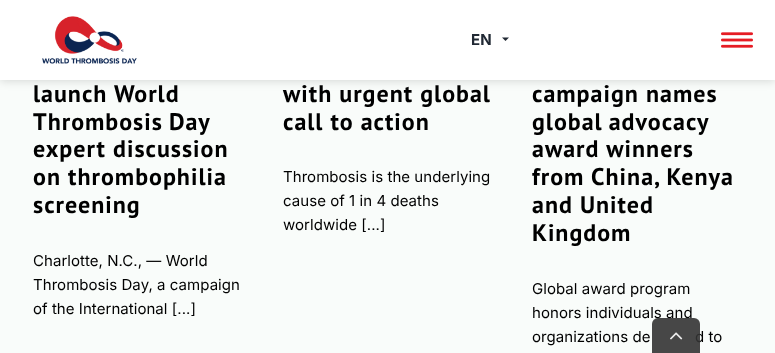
<!DOCTYPE html>
<meta charset="utf-8">
<style>body { margin: 0 } canvas { display: block }</style>
<canvas id="canvas" width="775" height="353"></canvas>
<script type="module">
  const canvas = document.getElementById("canvas");
  const ctx = canvas.getContext("2d");
  ctx.miterLimit = 4;
  ctx.fontKerning = "normal";
  async function loadImage(src) {
    const img = new Image();
    img.src = src;
    await img.decode();
    return img;
  }

  ctx.fillStyle = "#f9fcfa";
  ctx.fillRect(0, 0, 775, 353);
  ctx.fillStyle = "rgba(0, 0, 0, 0.15)";
  ctx.filter = "blur(5px)";
  ctx.beginPath();
  ctx.rect(0, 1, 775, 80);
  ctx.fill();
  ctx.filter = "none";
  ctx.fillStyle = "#ffffff";
  ctx.fillRect(0, 0, 775, 80);
  ctx.drawImage(await loadImage("img1.png"), 42, 16, 95, 48);
  ctx.letterSpacing = "0.05px";
  ctx.font = "bold 15px Inter";
  ctx.fillStyle = "#212934";
  ctx.fillText("EN", 471, 45);
  ctx.beginPath();
  ctx.moveTo(502, 37.5);
  ctx.lineTo(505.5, 41);
  ctx.lineTo(509, 37.5);
  ctx.closePath();
  ctx.fill();
  ctx.drawImage(await loadImage("img2.png"), 721, 32, 32, 16);
  ctx.letterSpacing = "1px";
  ctx.font = "bold 24px PT Sans";
  ctx.fillStyle = "#000000";
  ctx.fillText("launch World", 33, 102);
  ctx.wordSpacing = "-1px";
  ctx.fillText("Thrombosis Day", 33, 130);
  ctx.wordSpacing = "0px";
  ctx.fillText("expert discussion", 33, 157);
  ctx.fillText("on thrombophilia", 33, 185);
  ctx.fillText("screening", 33, 213);
  ctx.letterSpacing = "0.05px";
  ctx.font = "15px Inter";
  ctx.fillText("Charlotte, N.C., — World", 33, 266);
  ctx.fillText("Thrombosis Day, a campaign", 33, 290);
  ctx.fillText("of the International [...]", 33, 314);
  ctx.letterSpacing = "1px";
  ctx.font = "bold 24px PT Sans";
  ctx.fillText("with urgent global", 283, 102);
  ctx.fillText("call to action", 283, 130);
  ctx.letterSpacing = "0.05px";
  ctx.font = "15px Inter";
  ctx.fillText("Thrombosis is the underlying", 283, 182);
  ctx.fillText("cause of 1 in 4 deaths", 283, 206);
  ctx.fillText("worldwide [...]", 283, 230);
  ctx.letterSpacing = "1px";
  ctx.font = "bold 24px PT Sans";
  ctx.fillText("campaign names", 532, 102);
  ctx.wordSpacing = "-1px";
  ctx.fillText("global advocacy", 532, 130);
  ctx.wordSpacing = "0px";
  ctx.fillText("award winners", 532, 157);
  ctx.fillText("from China, Kenya", 532, 185);
  ctx.fillText("and United", 532, 213);
  ctx.fillText("Kingdom", 532, 241);
  ctx.letterSpacing = "0.05px";
  ctx.font = "15px Inter";
  ctx.fillText("Global award program", 532, 294);
  ctx.fillText("honors individuals and", 532, 318);
  ctx.fillText("organizations de", 532, 342);
  ctx.fillText("d to", 695, 342);
  ctx.fillStyle = "rgba(51, 51, 51, 0.9)";
  ctx.beginPath();
  ctx.roundRect(652, 318, 48, 35, [6, 6, 0, 0]);
  ctx.fill();
  ctx.drawImage(await loadImage("img3.png"), 670, 332, 13, 8);
</script>
